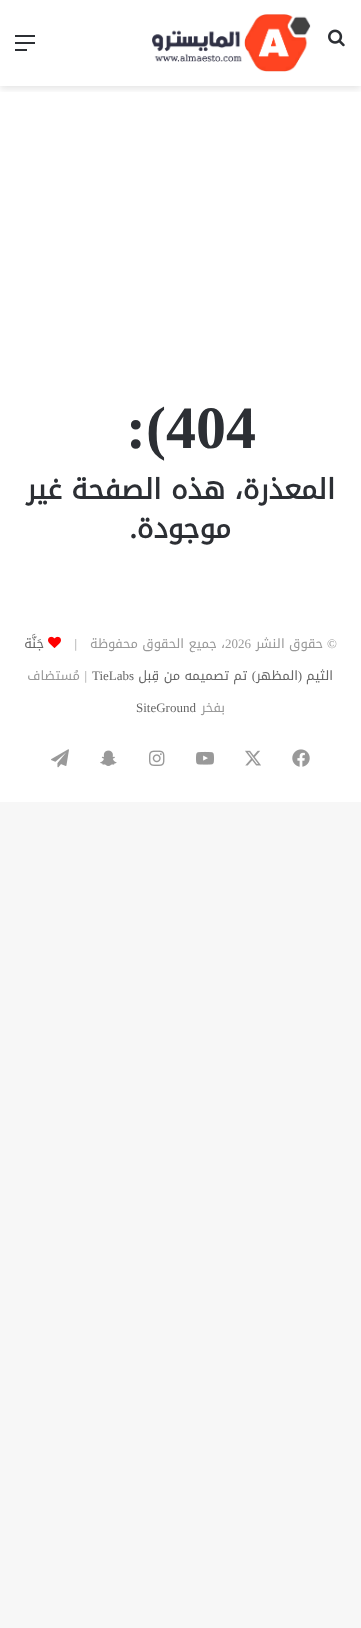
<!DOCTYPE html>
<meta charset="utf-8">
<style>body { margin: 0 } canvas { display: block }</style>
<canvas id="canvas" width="361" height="1628"></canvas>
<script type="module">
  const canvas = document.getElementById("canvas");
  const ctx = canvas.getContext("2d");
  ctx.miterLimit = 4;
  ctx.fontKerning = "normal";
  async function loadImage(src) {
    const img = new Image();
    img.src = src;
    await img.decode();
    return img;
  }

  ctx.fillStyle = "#f7f7f7";
  ctx.fillRect(0, 0, 361, 1628);
  ctx.fillStyle = "#ffffff";
  ctx.fillRect(0, 0, 361, 802);
  ctx.save();
  ctx.beginPath();
  ctx.rect(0, 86, 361, 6);
  ctx.clip();
  ctx.fillStyle = "rgba(0, 0, 0, 0.1)";
  ctx.filter = "blur(3.5px)";
  ctx.beginPath();
  ctx.rect(0, 3, 361, 86);
  ctx.fill();
  ctx.filter = "none";
  ctx.restore();
  ctx.drawImage(await loadImage("img1.png"), 328, 29, 17, 18);
  ctx.drawImage(await loadImage("img2.png"), 152, 14, 159, 58);
  ctx.fillStyle = "#2c2f34";
  ctx.fillRect(15, 42, 20, 2);
  ctx.fillRect(15, 35, 20, 2);
  ctx.fillRect(15, 49, 12, 2);
  ctx.font = "bold 60px Liberation Serif";
  ctx.fillText(":(404", 126, 448);
  ctx.direction = "rtl";
  ctx.font = "bold 28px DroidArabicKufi";
  ctx.fillText("المعذرة، هذه الصفحة غير", 335, 499);
  ctx.fillText("موجودة", 231, 538);
  ctx.font = "bold 28px Liberation Serif";
  ctx.fillText(".", 137, 538);
  ctx.font = "13px Liberation Serif";
  ctx.fillStyle = "#999999";
  ctx.fillText("©", 337, 648);
  ctx.font = "13px DroidArabicKufi";
  ctx.fillText("حقوق النشر", 323, 648);
  ctx.direction = "ltr";
  ctx.font = "13px Liberation Serif";
  ctx.fillText("2026", 225, 648);
  ctx.direction = "rtl";
  ctx.font = "13px DroidArabicKufi";
  ctx.fillText("، جميع الحقوق محفوظة", 225, 648);
  ctx.font = "13px Liberation Serif";
  ctx.fillText("|", 77, 648);
  ctx.drawImage(await loadImage("img3.png"), 48, 636, 13, 12);
  ctx.font = "13px DroidArabicKufi";
  ctx.fillStyle = "#666666";
  ctx.fillText("جَنَّة", 44, 648);
  ctx.fillText("الثيم", 333, 680);
  ctx.font = "13px Liberation Serif";
  ctx.fillText("(", 302, 680);
  ctx.fillText(")", 256, 680);
  ctx.font = "13px DroidArabicKufi";
  ctx.fillText("المظهر", 298, 680);
  ctx.fillText("تم تصميمه من قِبل", 247, 680);
  ctx.direction = "ltr";
  ctx.font = "13px Liberation Serif";
  ctx.fillText("TieLabs", 92, 680);
  ctx.direction = "rtl";
  ctx.fillStyle = "#999999";
  ctx.fillText("|", 87, 680);
  ctx.font = "13px DroidArabicKufi";
  ctx.fillText("مُستضاف", 80, 680);
  ctx.fillText("بفخر", 225, 712);
  ctx.direction = "ltr";
  ctx.font = "13px Liberation Serif";
  ctx.fillStyle = "#666666";
  ctx.fillText("SiteGround", 136, 712);
  ctx.drawImage(await loadImage("img4.png"), 292, 749, 18, 18);
  ctx.drawImage(await loadImage("img5.png"), 245, 750, 16, 16);
  ctx.drawImage(await loadImage("img6.png"), 196, 751, 18, 14);
  ctx.drawImage(await loadImage("img7.png"), 149, 750, 16, 16);
  ctx.drawImage(await loadImage("img8.png"), 100, 750, 17, 16);
  ctx.drawImage(await loadImage("img9.png"), 51, 749, 18, 19);
</script>
